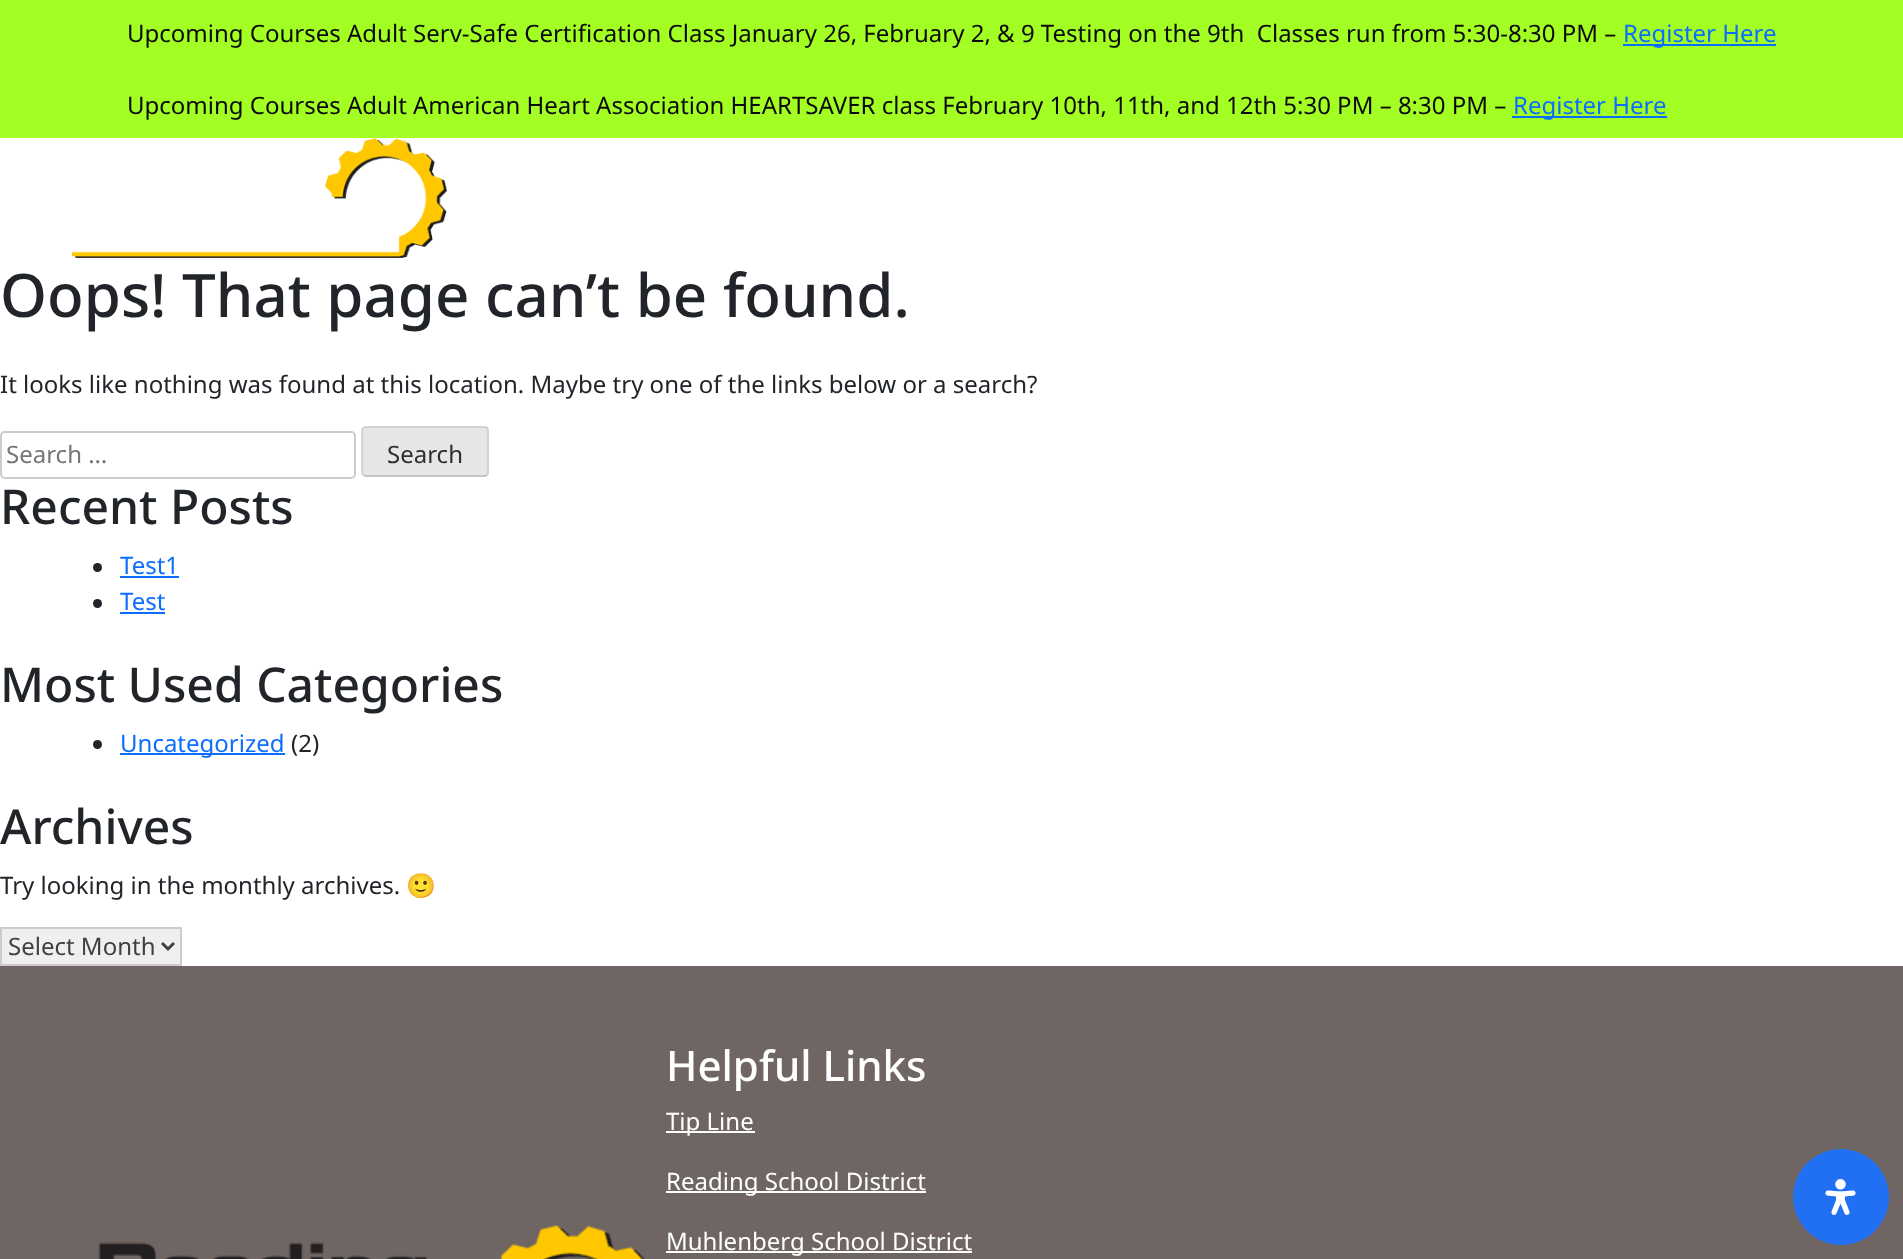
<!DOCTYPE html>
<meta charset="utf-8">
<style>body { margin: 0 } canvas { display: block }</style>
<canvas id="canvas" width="1903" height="1259"></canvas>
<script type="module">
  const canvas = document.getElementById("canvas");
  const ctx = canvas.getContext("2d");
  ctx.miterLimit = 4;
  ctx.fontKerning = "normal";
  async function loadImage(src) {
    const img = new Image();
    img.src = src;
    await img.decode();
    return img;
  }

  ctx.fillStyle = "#ffffff";
  ctx.fillRect(0, 0, 1903, 1259);
  ctx.fillStyle = "#a3ff23";
  ctx.fillRect(0, 0, 1903, 138);
  ctx.font = "24px Noto Sans";
  ctx.fillStyle = "#0a0a0a";
  ctx.fillText("Upcoming Courses Adult Serv-Safe Certification Class January 26, February 2, & 9 Testing on the 9th  Classes run from 5:30-8:30 PM –", 127, 42);
  ctx.fillStyle = "#0d6efd";
  ctx.fillRect(1623, 44, 153, 2);
  ctx.fillText("Register Here", 1623, 42);
  ctx.fillStyle = "#0a0a0a";
  ctx.fillText("Upcoming Courses Adult American Heart Association HEARTSAVER class February 10th, 11th, and 12th 5:30 PM – 8:30 PM –", 127, 114);
  ctx.fillStyle = "#0d6efd";
  ctx.fillRect(1512, 116, 155, 2);
  ctx.fillText("Register Here", 1513, 114);
  ctx.drawImage(await loadImage("img1.png"), 72, 138, 375, 120);
  ctx.font = "500 60px Noto Sans";
  ctx.fillStyle = "#212529";
  ctx.fillText("Oops! That page can’t be found.", 0, 317);
  ctx.font = "24px Noto Sans";
  ctx.fillText("It looks like nothing was found at this location. Maybe try one of the links below or a search?", 0, 393);
  ctx.beginPath();
  ctx.roundRect(1, 432, 354, 46, 4);
  ctx.strokeStyle = "#cccccc";
  ctx.lineWidth = 2;
  ctx.stroke();
  ctx.fillStyle = "#757575";
  ctx.fillText("Search …", 6, 463);
  ctx.fillStyle = "#e6e6e6";
  ctx.beginPath();
  ctx.roundRect(362, 426, 127, 51, 5);
  ctx.fill();
  ctx.beginPath();
  ctx.moveTo(487, 475);
  ctx.lineTo(484.5, 476);
  ctx.lineTo(365.5, 476);
  ctx.lineTo(363.5, 475);
  ctx.strokeStyle = "#bbbbbb";
  ctx.lineWidth = 1.5;
  ctx.stroke();
  ctx.beginPath();
  ctx.moveTo(363.5, 475);
  ctx.bezierCurveTo(362.5, 474.5, 362, 473.5, 362, 472.5);
  ctx.lineTo(362, 430.5);
  ctx.bezierCurveTo(362, 429.5, 362.5, 428.5, 363.5, 428);
  ctx.bezierCurveTo(364, 427, 365, 427, 366, 427);
  ctx.lineTo(484.5, 427);
  ctx.bezierCurveTo(485.5, 427, 486.5, 427, 487, 428);
  ctx.bezierCurveTo(488, 428.5, 488, 429.5, 488, 430.5);
  ctx.lineTo(488, 472.5);
  ctx.bezierCurveTo(488, 473.5, 488, 474.5, 487, 475);
  ctx.strokeStyle = "#cccccc";
  ctx.stroke();
  ctx.fillStyle = "#2e2e2e";
  ctx.fillText("Search", 387, 463);
  ctx.font = "500 48px Noto Sans";
  ctx.fillStyle = "#212529";
  ctx.fillText("Recent Posts", 0, 524);
  ctx.beginPath();
  ctx.arc(97.5, 567.5, 4.5, 0, Math.PI * 2);
  ctx.fill();
  ctx.font = "24px Noto Sans";
  ctx.fillStyle = "#0d6efd";
  ctx.fillText("Test1", 120, 574);
  ctx.fillRect(120, 576, 59, 2);
  ctx.fillStyle = "#212529";
  ctx.beginPath();
  ctx.arc(97.5, 603.5, 4.5, 0, Math.PI * 2);
  ctx.fill();
  ctx.fillStyle = "#0d6efd";
  ctx.fillText("Test", 120, 610);
  ctx.fillRect(120, 612, 45, 2);
  ctx.font = "500 48px Noto Sans";
  ctx.fillStyle = "#212529";
  ctx.fillText("Most Used Categories", 0, 702);
  ctx.beginPath();
  ctx.arc(97.5, 744.5, 4.5, 0, Math.PI * 2);
  ctx.fill();
  ctx.fillStyle = "#0d6efd";
  ctx.fillRect(120, 753, 165, 2);
  ctx.font = "24px Noto Sans";
  ctx.fillText("Uncategorized", 120, 752);
  ctx.fillStyle = "#212529";
  ctx.fillText("(2)", 291, 752);
  ctx.font = "500 48px Noto Sans";
  ctx.fillText("Archives", 0, 844);
  ctx.font = "24px Noto Sans";
  ctx.fillText("Try looking in the monthly archives.", 0, 894);
  ctx.font = "24px Noto Color Emoji";
  ctx.fillText("🙂", 406, 894);
  ctx.fillStyle = "#efefef";
  ctx.beginPath();
  ctx.rect(1, 928, 180, 37);
  ctx.fill();
  ctx.lineWidth = 2;
  ctx.stroke();
  ctx.beginPath();
  ctx.moveTo(162, 943);
  ctx.lineTo(168, 949);
  ctx.lineTo(174, 943);
  ctx.strokeStyle = "#404040";
  ctx.lineWidth = 3;
  ctx.stroke();
  ctx.font = "24px Noto Sans";
  ctx.fillStyle = "#404040";
  ctx.fillText("Select Month", 8, 955);
  ctx.fillStyle = "#6f6663";
  ctx.fillRect(0, 966, 1903, 293);
  ctx.drawImage(await loadImage("img2.png"), 98, 1225, 547, 34);
  ctx.font = "500 42px Noto Sans";
  ctx.fillStyle = "#ffffff";
  ctx.fillText("Helpful Links", 666, 1081);
  ctx.fillRect(666, 1131, 89, 2);
  ctx.font = "24px Noto Sans";
  ctx.fillText("Tip Line", 666, 1130);
  ctx.fillRect(666, 1191, 260, 2);
  ctx.fillText("Reading School District", 666, 1190);
  ctx.fillRect(666, 1251, 306, 2);
  ctx.fillText("Muhlenberg School District", 666, 1250);
  ctx.fillStyle = "#216ff3";
  ctx.beginPath();
  ctx.arc(1841, 1197, 48, 0, Math.PI * 2);
  ctx.fill();
  ctx.drawImage(await loadImage("img3.png"), 1825, 1179, 31, 36);
</script>
